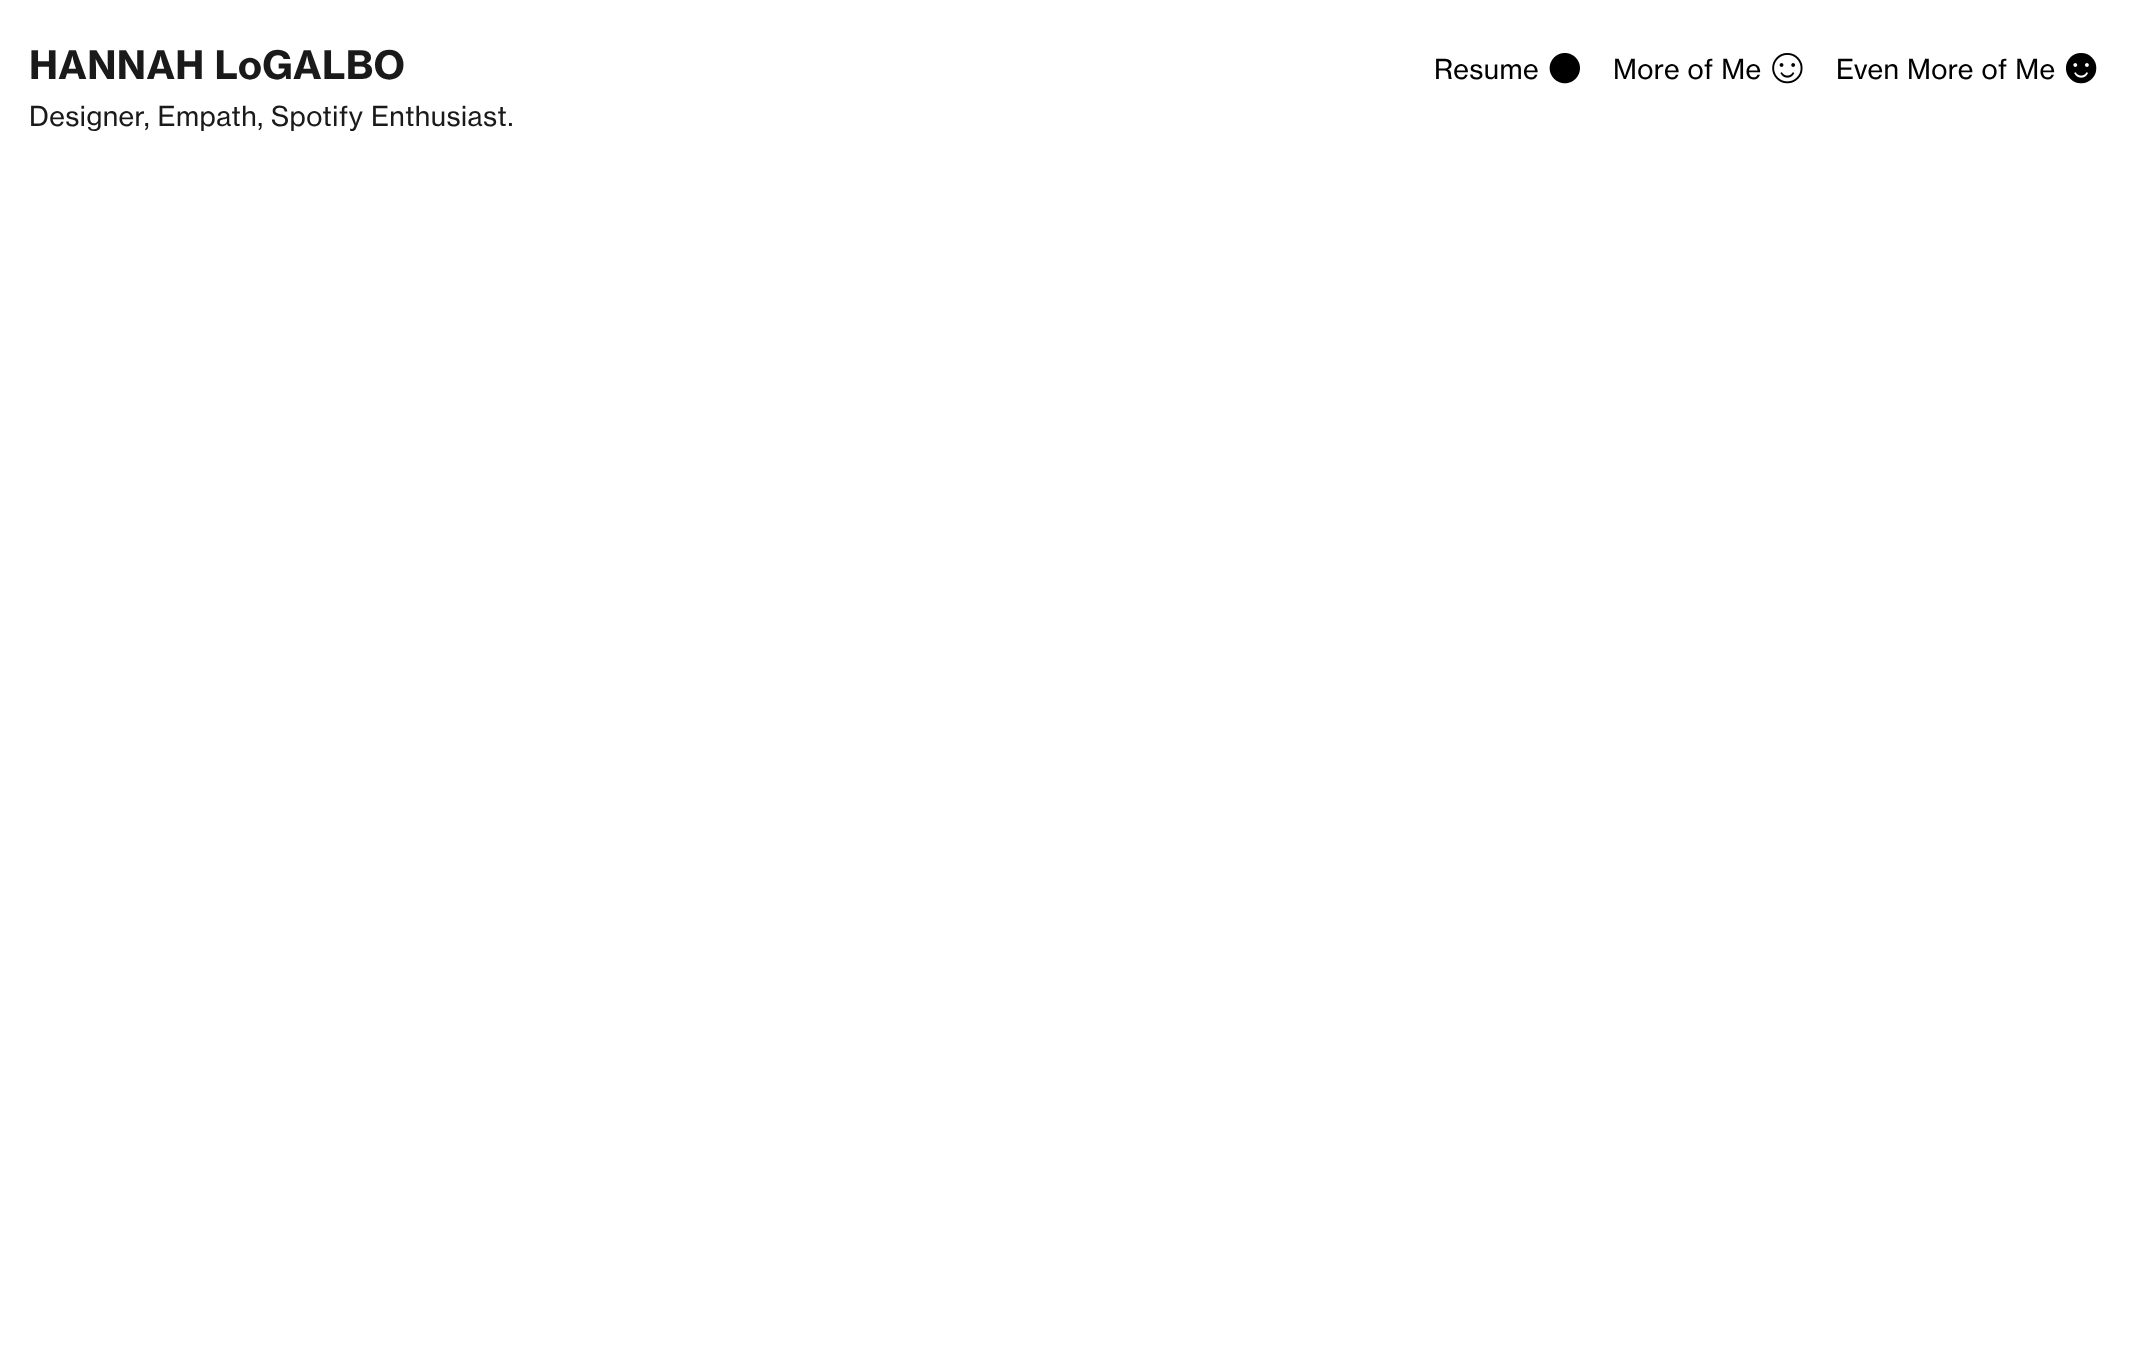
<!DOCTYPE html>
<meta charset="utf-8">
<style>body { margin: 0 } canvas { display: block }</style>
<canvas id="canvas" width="2129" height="1345"></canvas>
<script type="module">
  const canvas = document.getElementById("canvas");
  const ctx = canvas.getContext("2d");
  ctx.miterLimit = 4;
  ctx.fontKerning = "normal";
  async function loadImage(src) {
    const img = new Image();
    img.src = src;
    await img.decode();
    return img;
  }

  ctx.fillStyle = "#ffffff";
  ctx.fillRect(0, 0, 2129, 1345);
  ctx.letterSpacing = "0.4px";
  ctx.font = "bold 38.75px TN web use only";
  ctx.fillStyle = "#1a1a1a";
  ctx.fillText("HANNAH LoGALBO", 29, 79);
  ctx.font = "27.1px TN web use only";
  ctx.fillStyle = "#000000";
  ctx.fillText("Resume", 1434, 79);
  ctx.drawImage(await loadImage("img1.png"), 1549, 53, 31, 31);
  ctx.fillText("More of Me", 1613, 79);
  ctx.drawImage(await loadImage("img2.png"), 1772, 53, 31, 31);
  ctx.fillText("Even More of Me", 1836, 79);
  ctx.drawImage(await loadImage("img3.png"), 2065, 53, 32, 31);
  ctx.fillStyle = "#1a1a1a";
  ctx.fillText("Designer, Empath, Spotify Enthusiast.", 29, 126);
</script>
